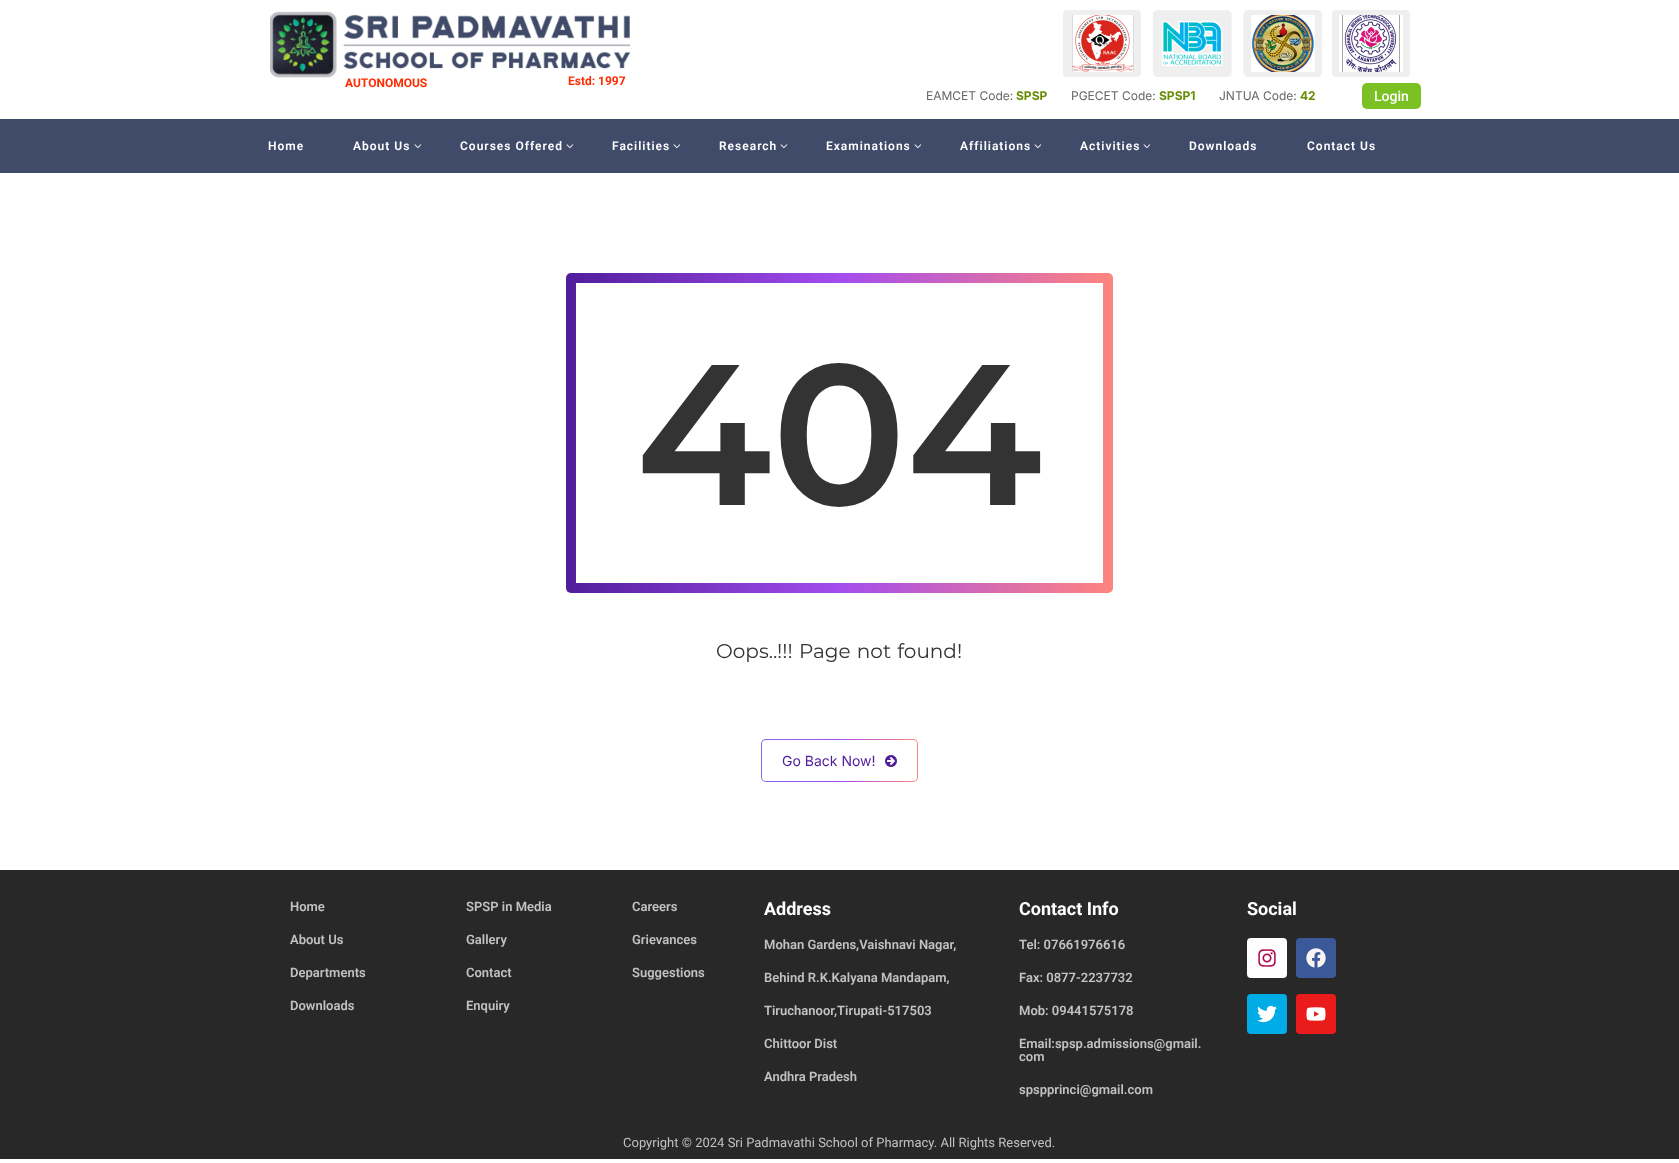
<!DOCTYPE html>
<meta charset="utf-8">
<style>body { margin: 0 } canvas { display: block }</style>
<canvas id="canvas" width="1679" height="1163"></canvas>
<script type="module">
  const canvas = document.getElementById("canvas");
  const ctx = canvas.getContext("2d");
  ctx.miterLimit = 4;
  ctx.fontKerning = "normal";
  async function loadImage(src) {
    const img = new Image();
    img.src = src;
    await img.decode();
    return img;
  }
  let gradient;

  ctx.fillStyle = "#ffffff";
  ctx.fillRect(0, 0, 1679, 1163);
  ctx.drawImage(await loadImage("img1.png"), 270, 11, 361, 67);
  ctx.font = "bold 12px Roboto";
  ctx.fillStyle = "#ff2c00";
  ctx.fillText("AUTONOMOUS", 345, 87);
  ctx.fillText("Estd: 1997", 568, 85);
  ctx.drawImage(await loadImage("img2.png"), 1063, 10, 347, 67);
  ctx.font = "12px Inter";
  ctx.fillStyle = "#666666";
  ctx.fillText("EAMCET Code:", 926, 100);
  ctx.font = "bold 12px Inter";
  ctx.fillStyle = "#688c04";
  ctx.fillText("SPSP", 1016, 100);
  ctx.font = "12px Inter";
  ctx.fillStyle = "#666666";
  ctx.fillText("PGECET Code:", 1071, 100);
  ctx.font = "bold 12px Inter";
  ctx.fillStyle = "#688c04";
  ctx.fillText("SPSP1", 1159, 100);
  ctx.font = "12px Inter";
  ctx.fillStyle = "#666666";
  ctx.fillText("JNTUA Code:", 1219, 100);
  ctx.font = "bold 12px Inter";
  ctx.fillStyle = "#688c04";
  ctx.fillText("42", 1300, 100);
  ctx.fillStyle = "#7bc124";
  ctx.beginPath();
  ctx.roundRect(1362, 83, 59, 26, 5);
  ctx.fill();
  ctx.font = "500 14px Roboto";
  ctx.fillStyle = "#ffffff";
  ctx.fillText("Login", 1374, 101);
  ctx.fillStyle = "#404b69";
  ctx.fillRect(0, 119, 1679, 54);
  ctx.letterSpacing = "1px";
  ctx.font = "600 12px Roboto";
  ctx.fillStyle = "#ffffff";
  ctx.fillText("Home", 268, 150);
  ctx.fillText("About Us", 353, 150);
  ctx.drawImage(await loadImage("img3.png"), 414, 144, 8, 5);
  ctx.fillText("Courses Offered", 460, 150);
  ctx.drawImage(await loadImage("img3.png"), 566, 144, 8, 5);
  ctx.fillText("Facilities", 612, 150);
  ctx.drawImage(await loadImage("img3.png"), 673, 144, 8, 5);
  ctx.fillText("Research", 719, 150);
  ctx.drawImage(await loadImage("img3.png"), 780, 144, 8, 5);
  ctx.fillText("Examinations", 826, 150);
  ctx.drawImage(await loadImage("img3.png"), 914, 144, 8, 5);
  ctx.fillText("Affiliations", 960, 150);
  ctx.drawImage(await loadImage("img3.png"), 1034, 144, 8, 5);
  ctx.fillText("Activities", 1080, 150);
  ctx.drawImage(await loadImage("img3.png"), 1143, 144, 8, 5);
  ctx.fillText("Downloads", 1189, 150);
  ctx.fillText("Contact Us", 1307, 150);
  gradient = ctx.createLinearGradient(566, 433, 1113, 433);
  gradient.addColorStop(0, "#501e9c");
  gradient.addColorStop(0.5, "#a44cee");
  gradient.addColorStop(1, "#ff847f");
  ctx.fillStyle = gradient;
  ctx.beginPath();
  ctx.roundRect(566, 273, 547, 320, 5);
  ctx.fill();
  ctx.fillStyle = "#ffffff";
  ctx.fillRect(576, 283, 527, 300);
  ctx.letterSpacing = "0px";
  ctx.font = "600 200px Montserrat";
  ctx.fillStyle = "#333333";
  ctx.fillText("404", 636, 505);
  ctx.wordSpacing = "1px";
  ctx.font = "20px Montserrat";
  ctx.fillText("Oops..!!! Page not found!", 716, 658);
  gradient = ctx.createLinearGradient(761, 761, 918, 761);
  gradient.addColorStop(0, "#8169f1");
  gradient.addColorStop(0.5, "#a44cee");
  gradient.addColorStop(1, "#ff847f");
  ctx.fillStyle = gradient;
  ctx.beginPath();
  ctx.roundRect(761, 739, 157, 43, 5);
  ctx.fill();
  ctx.fillStyle = "#ffffff";
  ctx.beginPath();
  ctx.roundRect(762, 740, 155, 41, 4);
  ctx.fill();
  ctx.wordSpacing = "0px";
  ctx.font = "14px Inter";
  ctx.fillStyle = "#501e9c";
  ctx.fillText("Go Back Now!", 782, 766);
  ctx.drawImage(await loadImage("img4.png"), 885, 755, 12, 12);
  ctx.fillStyle = "#282828";
  ctx.fillRect(0, 870, 1679, 289);
  ctx.font = "600 13px Roboto";
  ctx.fillStyle = "#c2c2c2";
  ctx.fillText("Home", 290, 911);
  ctx.fillText("About Us", 290, 944);
  ctx.fillText("Departments", 290, 977);
  ctx.fillText("Downloads", 290, 1010);
  ctx.fillText("SPSP in Media", 466, 911);
  ctx.fillText("Gallery", 466, 944);
  ctx.fillText("Contact", 466, 977);
  ctx.fillText("Enquiry", 466, 1010);
  ctx.fillText("Careers", 632, 911);
  ctx.fillText("Grievances", 632, 944);
  ctx.fillText("Suggestions", 632, 977);
  ctx.font = "bold 18px Roboto";
  ctx.fillStyle = "#ffffff";
  ctx.fillText("Address", 764, 915);
  ctx.font = "600 13px Roboto";
  ctx.fillStyle = "#c2c2c2";
  ctx.fillText("Mohan Gardens,Vaishnavi Nagar,", 764, 949);
  ctx.fillText("Behind R.K.Kalyana Mandapam,", 764, 982);
  ctx.fillText("Tiruchanoor,Tirupati-517503", 764, 1015);
  ctx.fillText("Chittoor Dist", 764, 1048);
  ctx.fillText("Andhra Pradesh", 764, 1081);
  ctx.font = "bold 18px Roboto";
  ctx.fillStyle = "#ffffff";
  ctx.fillText("Contact Info", 1019, 915);
  ctx.font = "600 13px Roboto";
  ctx.fillStyle = "#c2c2c2";
  ctx.fillText("Tel: 07661976616", 1019, 949);
  ctx.fillText("Fax: 0877-2237732", 1019, 982);
  ctx.fillText("Mob: 09441575178", 1019, 1015);
  ctx.fillText("Email:spsp.admissions@gmail.", 1019, 1048);
  ctx.fillText("com", 1019, 1061);
  ctx.fillText("spspprinci@gmail.com", 1019, 1094);
  ctx.font = "bold 18px Roboto";
  ctx.fillStyle = "#ffffff";
  ctx.fillText("Social", 1247, 915);
  ctx.fillStyle = "#fefefe";
  ctx.beginPath();
  ctx.roundRect(1247, 938, 40, 40, 4);
  ctx.fill();
  ctx.drawImage(await loadImage("img5.png"), 1258, 949, 18, 18);
  ctx.fillStyle = "#3b5998";
  ctx.beginPath();
  ctx.roundRect(1296, 938, 40, 40, 4);
  ctx.fill();
  ctx.drawImage(await loadImage("img6.png"), 1306, 948, 20, 20);
  ctx.fillStyle = "#00ace6";
  ctx.beginPath();
  ctx.roundRect(1247, 994, 40, 40, 4);
  ctx.fill();
  ctx.drawImage(await loadImage("img7.png"), 1257, 1005, 20, 18);
  ctx.fillStyle = "#e91b1b";
  ctx.beginPath();
  ctx.roundRect(1296, 994, 40, 40, 4);
  ctx.fill();
  ctx.drawImage(await loadImage("img8.png"), 1306, 1007, 20, 14);
  ctx.font = "13px Roboto";
  ctx.fillStyle = "#c2c2c2";
  ctx.fillText("Copyright © 2024 Sri Padmavathi School of Pharmacy. All Rights Reserved.", 623, 1147);
</script>
